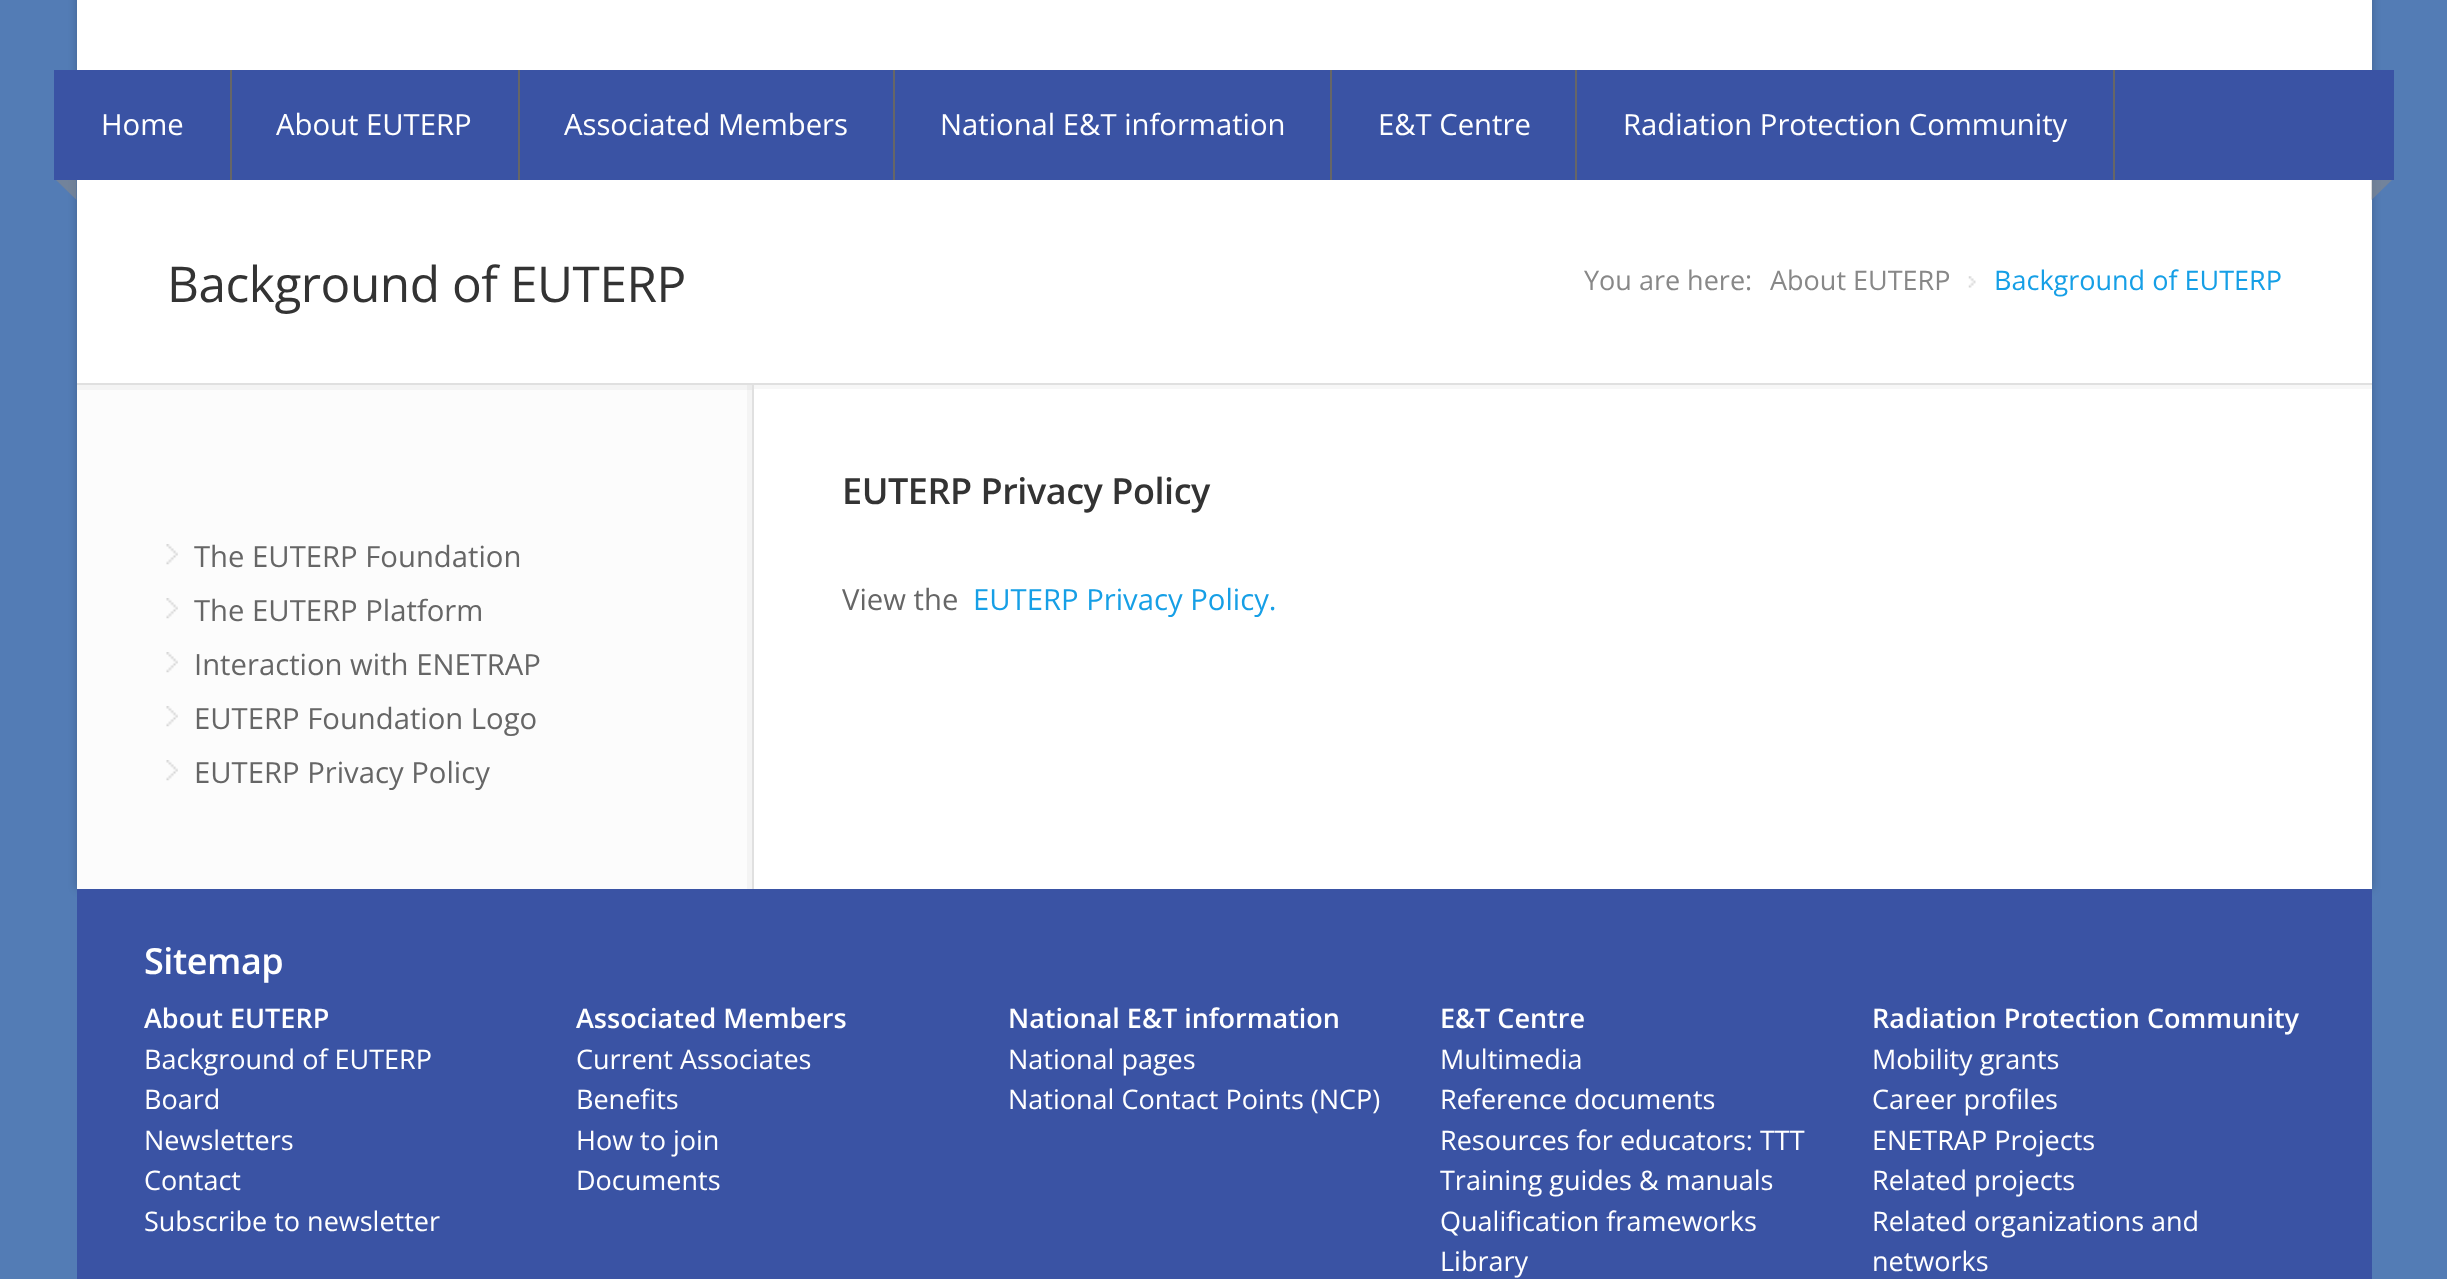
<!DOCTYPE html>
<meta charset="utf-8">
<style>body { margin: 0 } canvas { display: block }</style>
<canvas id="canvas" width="2447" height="1279"></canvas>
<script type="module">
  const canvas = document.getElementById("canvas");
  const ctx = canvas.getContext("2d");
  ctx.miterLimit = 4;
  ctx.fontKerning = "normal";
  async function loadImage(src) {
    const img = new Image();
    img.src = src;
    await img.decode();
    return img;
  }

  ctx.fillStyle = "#537cb5";
  ctx.fillRect(0, 0, 2447, 1279);
  ctx.fillStyle = "rgba(0, 0, 0, 0.2)";
  ctx.filter = "blur(4.5px)";
  ctx.beginPath();
  ctx.rect(77, -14, 2295, 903);
  ctx.fill();
  ctx.filter = "none";
  ctx.fillStyle = "#ffffff";
  ctx.fillRect(77, 0, 2295, 889);
  ctx.fillStyle = "#3a53a4";
  ctx.fillRect(54, 70, 2340, 110);
  ctx.fillStyle = "#666666";
  ctx.fillRect(230, 70, 2, 110);
  ctx.font = "29.25px Open Sans";
  ctx.fillStyle = "#ffffff";
  ctx.fillText("Home", 101, 135);
  ctx.fillStyle = "#666666";
  ctx.fillRect(518, 70, 2, 110);
  ctx.fillStyle = "#ffffff";
  ctx.fillText("About EUTERP", 276, 135);
  ctx.fillStyle = "#666666";
  ctx.fillRect(893, 70, 2, 110);
  ctx.fillStyle = "#ffffff";
  ctx.fillText("Associated Members", 564, 135);
  ctx.fillStyle = "#666666";
  ctx.fillRect(1330, 70, 2, 110);
  ctx.fillStyle = "#ffffff";
  ctx.fillText("National E&T information", 940, 135);
  ctx.fillStyle = "#666666";
  ctx.fillRect(1575, 70, 2, 110);
  ctx.fillStyle = "#ffffff";
  ctx.fillText("E&T Centre", 1378, 135);
  ctx.fillStyle = "#666666";
  ctx.fillRect(2113, 70, 2, 110);
  ctx.fillStyle = "#ffffff";
  ctx.fillText("Radiation Protection Community", 1623, 135);
  ctx.fillStyle = "rgba(136, 136, 136, 0.58)";
  ctx.beginPath();
  ctx.moveTo(76.5, 180);
  ctx.lineTo(76.5, 200);
  ctx.lineTo(56, 180);
  ctx.closePath();
  ctx.fill();
  ctx.beginPath();
  ctx.moveTo(2371.5, 180);
  ctx.lineTo(2392, 180);
  ctx.lineTo(2371.5, 200);
  ctx.closePath();
  ctx.fill();
  ctx.fillStyle = "#f7f7f7";
  ctx.beginPath();
  ctx.moveTo(77, 385);
  ctx.lineTo(77, 389);
  ctx.lineTo(2372, 389);
  ctx.lineTo(2372, 185);
  ctx.lineTo(2372, 385);
  ctx.closePath();
  ctx.fill();
  ctx.fillStyle = "#e0e0e0";
  ctx.fillRect(77, 383, 2295, 2);
  ctx.letterSpacing = "-0.45px";
  ctx.font = "49.5px Open Sans";
  ctx.fillStyle = "#333333";
  ctx.fillText("Background of EUTERP", 167, 302);
  ctx.letterSpacing = "0px";
  ctx.font = "27px Open Sans";
  ctx.fillStyle = "#888888";
  ctx.fillText("You are here:", 1584, 290);
  ctx.drawImage(await loadImage("img1.png"), 1968, 276, 8, 12);
  ctx.fillText("About EUTERP", 1770, 290);
  ctx.fillStyle = "#169fe6";
  ctx.fillText("Background of EUTERP", 1994, 290);
  ctx.fillStyle = "#fcfcfc";
  ctx.fillRect(77, 390, 675, 499);
  ctx.fillStyle = "#f4f4f4";
  ctx.fillRect(77, 385, 675, 5);
  ctx.fillStyle = "rgba(0, 0, 0, 0.03)";
  ctx.fillRect(747, 385, 5, 504);
  ctx.fillStyle = "#e0e0e0";
  ctx.fillRect(752, 385, 2, 504);
  ctx.drawImage(await loadImage("img2.png"), 166, 544, 12, 21);
  ctx.font = "29.25px Open Sans";
  ctx.fillStyle = "#666666";
  ctx.fillText("The EUTERP Foundation", 194, 567);
  ctx.drawImage(await loadImage("img2.png"), 166, 598, 12, 21);
  ctx.fillText("The EUTERP Platform", 194, 621);
  ctx.drawImage(await loadImage("img2.png"), 166, 652, 12, 21);
  ctx.fillText("Interaction with ENETRAP", 194, 675);
  ctx.drawImage(await loadImage("img2.png"), 166, 706, 12, 21);
  ctx.fillText("EUTERP Foundation Logo", 194, 729);
  ctx.drawImage(await loadImage("img3.png"), 166, 760, 12, 21);
  ctx.fillText("EUTERP Privacy Policy", 194, 783);
  ctx.letterSpacing = "-0.45px";
  ctx.font = "600 36px Open Sans";
  ctx.fillStyle = "#333333";
  ctx.fillText("EUTERP Privacy Policy", 842, 504);
  ctx.letterSpacing = "0px";
  ctx.font = "29.25px Open Sans";
  ctx.fillStyle = "#666666";
  ctx.fillText("View the", 842, 610);
  ctx.fillStyle = "#169fe6";
  ctx.fillText("EUTERP Privacy Policy.", 973, 610);
  ctx.fillStyle = "#3a53a4";
  ctx.fillRect(77, 889, 2295, 390);
  ctx.letterSpacing = "-0.45px";
  ctx.font = "600 36px Open Sans";
  ctx.fillStyle = "#ffffff";
  ctx.fillText("Sitemap", 144, 974);
  ctx.letterSpacing = "0px";
  ctx.font = "600 27px Open Sans";
  ctx.fillText("About EUTERP", 144, 1028);
  ctx.font = "27px Open Sans";
  ctx.fillText("Background of EUTERP", 144, 1069);
  ctx.fillText("Board", 144, 1109);
  ctx.fillText("Newsletters", 144, 1150);
  ctx.fillText("Contact", 144, 1190);
  ctx.fillText("Subscribe to newsletter", 144, 1231);
  ctx.font = "600 27px Open Sans";
  ctx.fillText("Associated Members", 576, 1028);
  ctx.font = "27px Open Sans";
  ctx.fillText("Current Associates", 576, 1069);
  ctx.fillText("Benefits", 576, 1109);
  ctx.fillText("How to join", 576, 1150);
  ctx.fillText("Documents", 576, 1190);
  ctx.font = "600 27px Open Sans";
  ctx.fillText("National E&T information", 1008, 1028);
  ctx.font = "27px Open Sans";
  ctx.fillText("National pages", 1008, 1069);
  ctx.fillText("National Contact Points (NCP)", 1008, 1109);
  ctx.font = "600 27px Open Sans";
  ctx.fillText("E&T Centre", 1440, 1028);
  ctx.font = "27px Open Sans";
  ctx.fillText("Multimedia", 1440, 1069);
  ctx.fillText("Reference documents", 1440, 1109);
  ctx.fillText("Resources for educators: TTT", 1440, 1150);
  ctx.fillText("Training guides & manuals", 1440, 1190);
  ctx.fillText("Qualification frameworks", 1440, 1231);
  ctx.fillText("Library", 1440, 1271);
  ctx.font = "600 27px Open Sans";
  ctx.fillText("Radiation Protection Community", 1872, 1028);
  ctx.font = "27px Open Sans";
  ctx.fillText("Mobility grants", 1872, 1069);
  ctx.fillText("Career profiles", 1872, 1109);
  ctx.fillText("ENETRAP Projects", 1872, 1150);
  ctx.fillText("Related projects", 1872, 1190);
  ctx.fillText("Related organizations and", 1872, 1231);
  ctx.fillText("networks", 1872, 1271);
</script>
